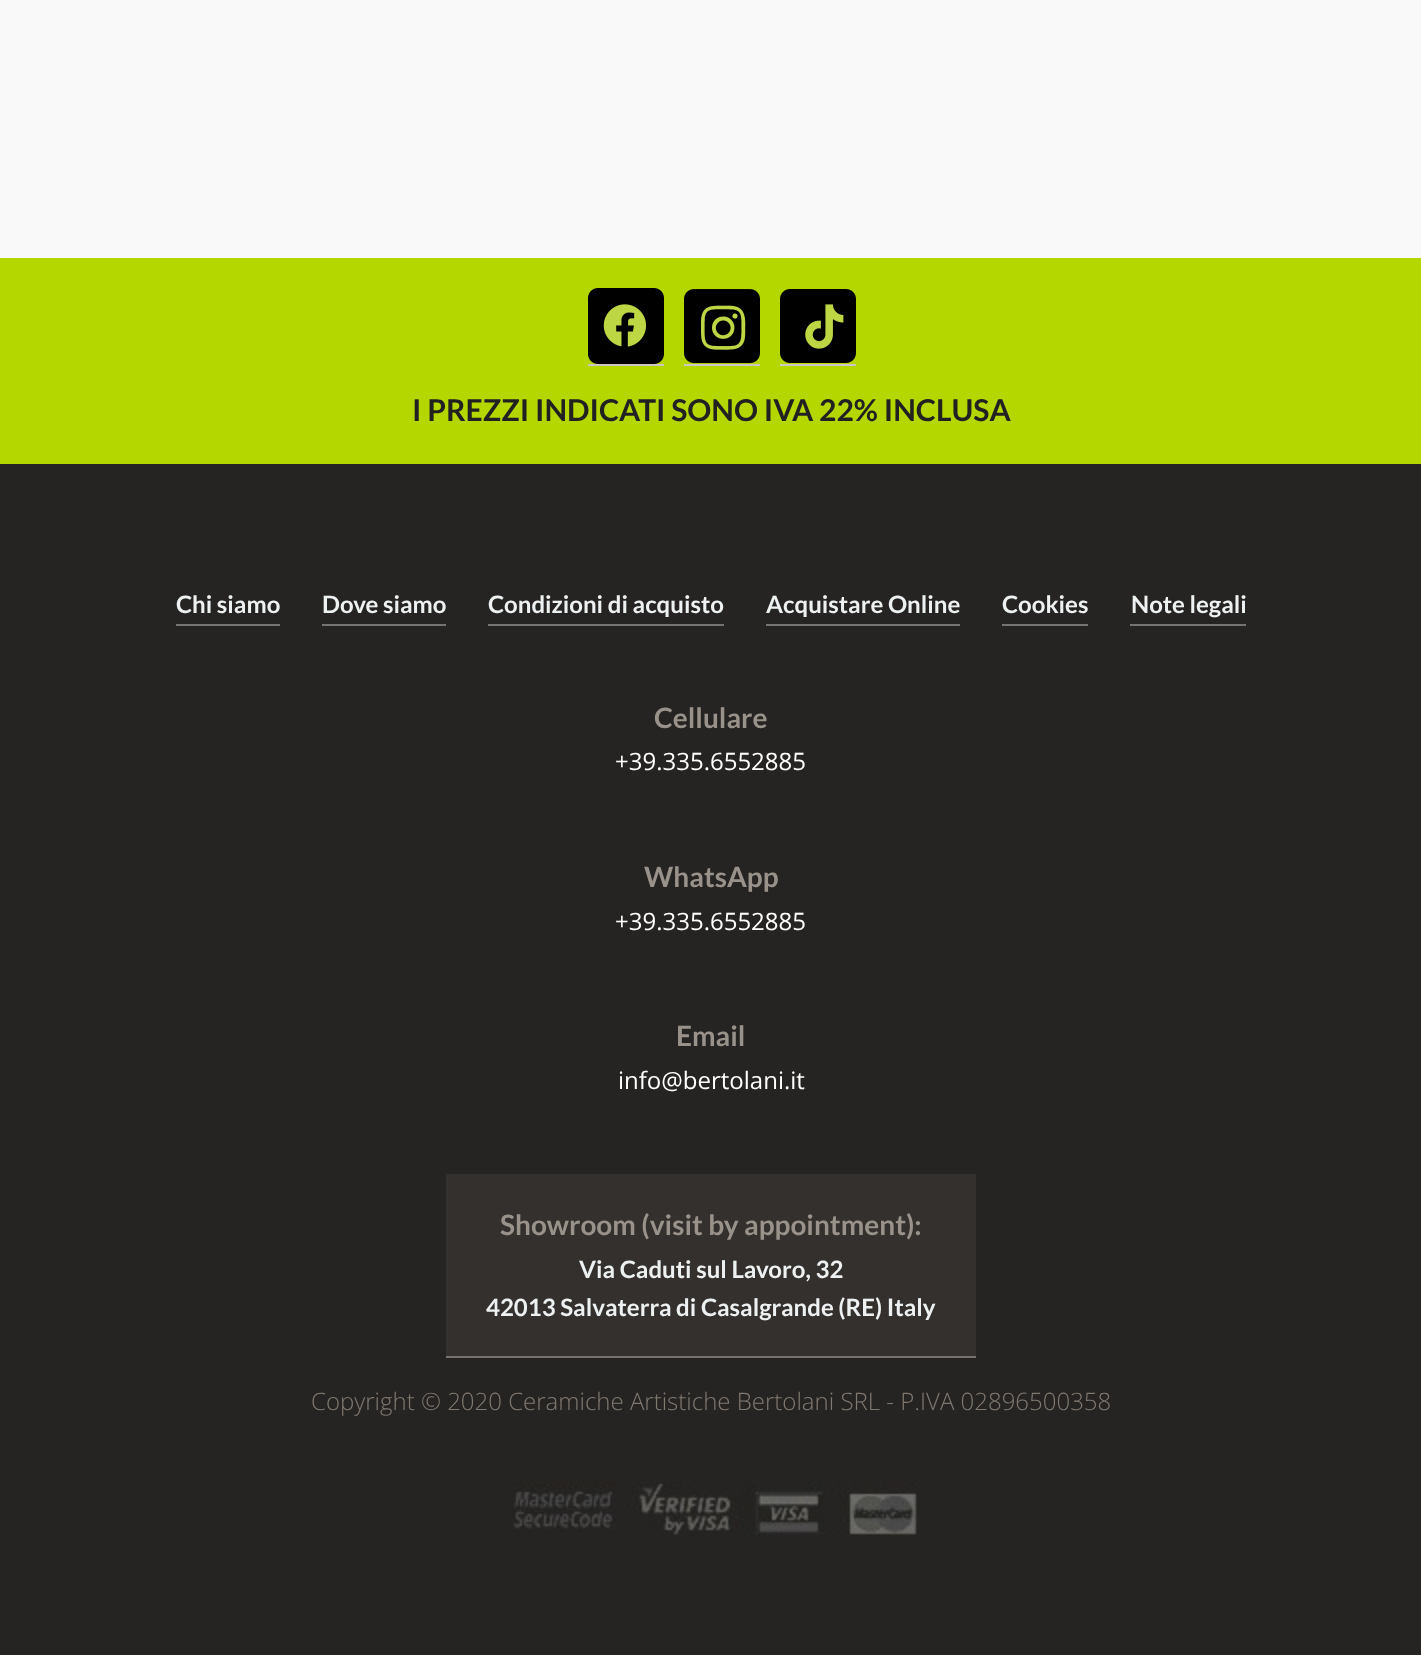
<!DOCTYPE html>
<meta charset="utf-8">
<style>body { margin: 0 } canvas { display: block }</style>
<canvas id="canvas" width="1421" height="1655"></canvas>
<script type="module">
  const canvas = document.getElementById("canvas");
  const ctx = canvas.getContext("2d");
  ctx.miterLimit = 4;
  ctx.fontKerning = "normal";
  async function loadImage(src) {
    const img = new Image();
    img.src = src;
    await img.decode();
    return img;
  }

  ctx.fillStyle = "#f9f9f9";
  ctx.fillRect(0, 0, 1421, 1655);
  ctx.fillStyle = "#b4d700";
  ctx.fillRect(0, 258, 1421, 206);
  ctx.fillStyle = "#ccc7c2";
  ctx.fillRect(588, 364, 76, 2);
  ctx.drawImage(await loadImage("img1.png"), 588, 288, 76, 76);
  ctx.fillRect(684, 364, 76, 2);
  ctx.drawImage(await loadImage("img2.png"), 684, 289, 76, 75);
  ctx.fillRect(780, 364, 76, 2);
  ctx.drawImage(await loadImage("img3.png"), 780, 289, 76, 74);
  ctx.font = "bold 30px Lato";
  ctx.fillStyle = "#212121";
  ctx.fillText("I PREZZI INDICATI SONO IVA 22% INCLUSA", 412, 421);
  ctx.fillStyle = "#262422";
  ctx.fillRect(0, 464, 1421, 1191);
  ctx.fillStyle = "#767473";
  ctx.fillRect(176, 624, 104, 2);
  ctx.font = "bold 24px Lato";
  ctx.fillStyle = "#eef1f2";
  ctx.fillText("Chi siamo", 176, 613);
  ctx.fillStyle = "#767473";
  ctx.fillRect(322, 624, 124, 2);
  ctx.fillStyle = "#eef1f2";
  ctx.fillText("Dove siamo", 322, 613);
  ctx.fillStyle = "#767473";
  ctx.fillRect(488, 624, 236, 2);
  ctx.fillStyle = "#eef1f2";
  ctx.fillText("Condizioni di acquisto", 488, 613);
  ctx.fillStyle = "#767473";
  ctx.fillRect(766, 624, 194, 2);
  ctx.fillStyle = "#eef1f2";
  ctx.fillText("Acquistare Online", 766, 613);
  ctx.fillStyle = "#767473";
  ctx.fillRect(1002, 624, 86, 2);
  ctx.fillStyle = "#eef1f2";
  ctx.fillText("Cookies", 1002, 613);
  ctx.fillStyle = "#767473";
  ctx.fillRect(1130, 624, 116, 2);
  ctx.fillStyle = "#eef1f2";
  ctx.fillText("Note legali", 1131, 613);
  ctx.font = "bold 28px Lato";
  ctx.fillStyle = "#99928b";
  ctx.fillText("Cellulare", 654, 728);
  ctx.font = "24px Open Sans";
  ctx.fillStyle = "#ffffff";
  ctx.fillText("+39.335.6552885", 615, 770);
  ctx.font = "bold 28px Lato";
  ctx.fillStyle = "#99928b";
  ctx.fillText("WhatsApp", 644, 887);
  ctx.font = "24px Open Sans";
  ctx.fillStyle = "#ffffff";
  ctx.fillText("+39.335.6552885", 615, 930);
  ctx.font = "bold 28px Lato";
  ctx.fillStyle = "#99928b";
  ctx.fillText("Email", 676, 1046);
  ctx.font = "24px Open Sans";
  ctx.fillStyle = "#ffffff";
  ctx.fillText("info@bertolani.it", 618, 1089);
  ctx.fillStyle = "#33302d";
  ctx.fillRect(446, 1174, 530, 182);
  ctx.fillStyle = "#767473";
  ctx.fillRect(446, 1356, 530, 2);
  ctx.font = "bold 28px Lato";
  ctx.fillStyle = "#99928b";
  ctx.fillText("Showroom (visit by appointment):", 500, 1235);
  ctx.font = "bold 24px Lato";
  ctx.fillStyle = "#eef1f2";
  ctx.fillText("Via Caduti sul Lavoro, 32", 579, 1278);
  ctx.fillText("42013 Salvaterra di Casalgrande (RE) Italy", 486, 1316);
  ctx.font = "300 24px Open Sans";
  ctx.fillStyle = "#807972";
  ctx.fillText("Copyright © 2020 Ceramiche Artistiche Bertolani SRL - P.IVA 02896500358", 311, 1410);
  ctx.drawImage(await loadImage("img4.png"), 513, 1482, 404, 54);
</script>
